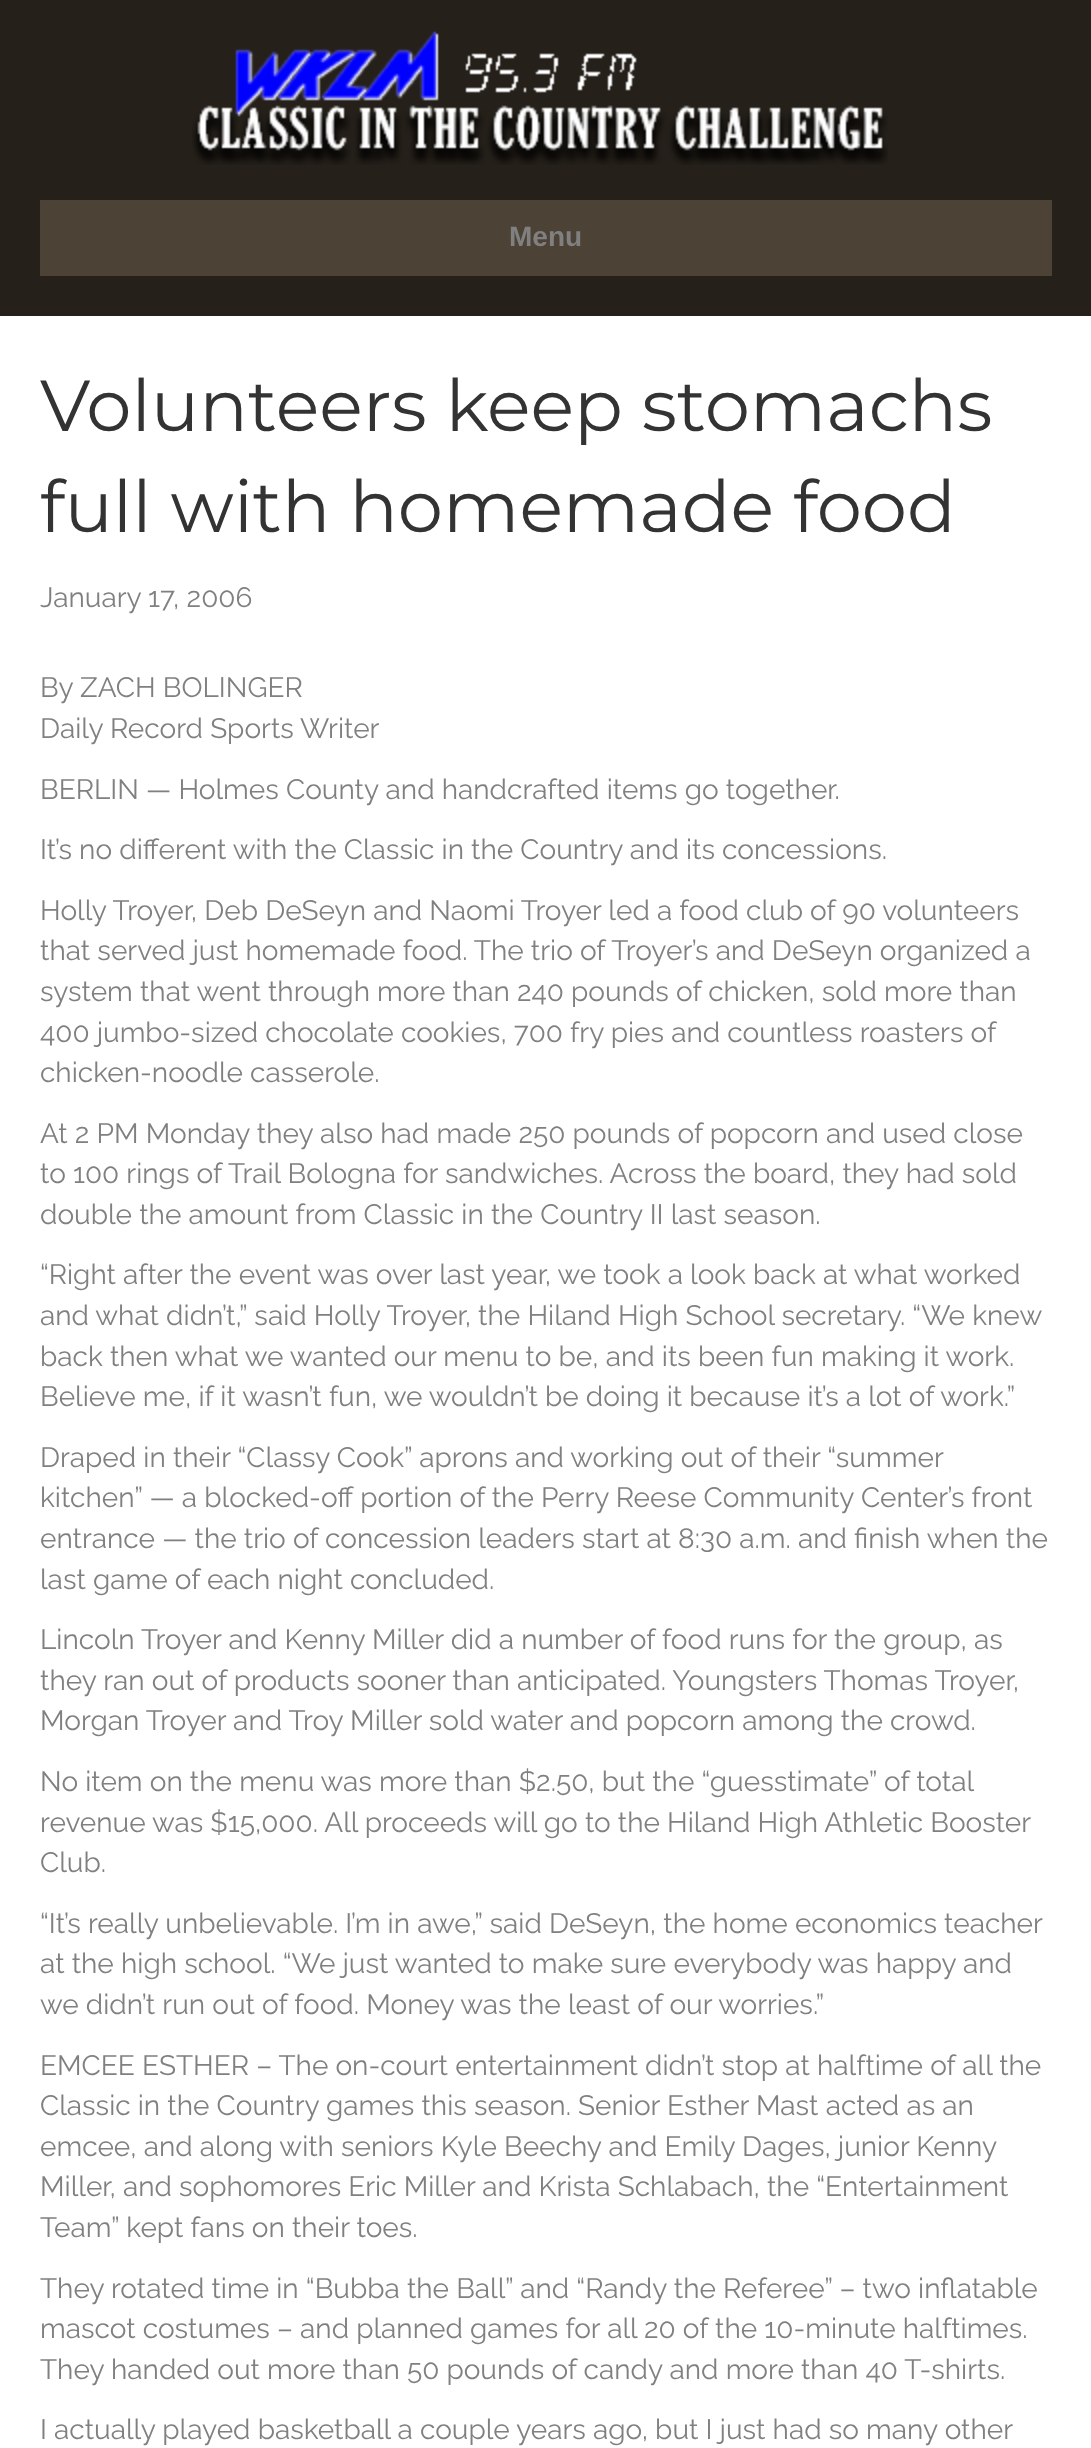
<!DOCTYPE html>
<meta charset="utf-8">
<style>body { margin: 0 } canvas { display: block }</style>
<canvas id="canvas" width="1091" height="2448"></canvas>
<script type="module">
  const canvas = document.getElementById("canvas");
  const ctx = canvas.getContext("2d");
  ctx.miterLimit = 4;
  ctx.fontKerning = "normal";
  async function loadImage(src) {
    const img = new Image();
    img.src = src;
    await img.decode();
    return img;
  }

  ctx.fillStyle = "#ffffff";
  ctx.fillRect(0, 0, 1091, 2448);
  ctx.fillStyle = "#25201a";
  ctx.fillRect(0, 0, 1091, 316);
  ctx.drawImage(await loadImage("img1.png"), 192, 31, 696, 134);
  ctx.fillStyle = "#4c4235";
  ctx.fillRect(40, 200, 1012, 76);
  ctx.font = "bold 28px Liberation Sans";
  ctx.fillStyle = "#808080";
  ctx.fillText("Menu", 509, 246);
  ctx.font = "100 72px Montserrat";
  ctx.fillStyle = "#333333";
  ctx.fillText("Volunteers keep stomachs", 40, 431);
  ctx.fillText("full with homemade food", 40, 532);
  ctx.font = "28px Raleway";
  ctx.fillStyle = "#808080";
  ctx.fillText("January 17, 2006", 40, 607);
  ctx.fillText("By ZACH BOLINGER", 40, 697);
  ctx.fillText("Daily Record Sports Writer", 40, 738);
  ctx.fillText("BERLIN — Holmes County and handcrafted items go together.", 40, 799);
  ctx.fillText("It’s no different with the Classic in the Country and its concessions.", 40, 859);
  ctx.fillText("Holly Troyer, Deb DeSeyn and Naomi Troyer led a food club of 90 volunteers", 40, 920);
  ctx.fillText("that served just homemade food. The trio of Troyer’s and DeSeyn organized a", 40, 960);
  ctx.fillText("system that went through more than 240 pounds of chicken, sold more than", 40, 1001);
  ctx.fillText("400 jumbo-sized chocolate cookies, 700 fry pies and countless roasters of", 40, 1042);
  ctx.fillText("chicken-noodle casserole.", 40, 1082);
  ctx.fillText("At 2 PM Monday they also had made 250 pounds of popcorn and used close", 40, 1143);
  ctx.fillText("to 100 rings of Trail Bologna for sandwiches. Across the board, they had sold", 40, 1183);
  ctx.fillText("double the amount from Classic in the Country II last season.", 40, 1224);
  ctx.fillText("“Right after the event was over last year, we took a look back at what worked", 40, 1284);
  ctx.fillText("and what didn’t,” said Holly Troyer, the Hiland High School secretary. “We knew", 40, 1325);
  ctx.fillText("back then what we wanted our menu to be, and its been fun making it work.", 40, 1366);
  ctx.fillText("Believe me, if it wasn’t fun, we wouldn’t be doing it because it’s a lot of work.”", 40, 1406);
  ctx.fillText("Draped in their “Classy Cook” aprons and working out of their “summer", 40, 1467);
  ctx.fillText("kitchen” — a blocked-off portion of the Perry Reese Community Center’s front", 40, 1507);
  ctx.fillText("entrance — the trio of concession leaders start at 8:30 a.m. and finish when the", 40, 1548);
  ctx.fillText("last game of each night concluded.", 40, 1589);
  ctx.fillText("Lincoln Troyer and Kenny Miller did a number of food runs for the group, as", 40, 1649);
  ctx.fillText("they ran out of products sooner than anticipated. Youngsters Thomas Troyer,", 40, 1690);
  ctx.fillText("Morgan Troyer and Troy Miller sold water and popcorn among the crowd.", 40, 1730);
  ctx.fillText("No item on the menu was more than $2.50, but the “guesstimate” of total", 40, 1791);
  ctx.fillText("revenue was $15,000. All proceeds will go to the Hiland High Athletic Booster", 40, 1832);
  ctx.fillText("Club.", 40, 1872);
  ctx.fillText("“It’s really unbelievable. I’m in awe,” said DeSeyn, the home economics teacher", 40, 1933);
  ctx.fillText("at the high school. “We just wanted to make sure everybody was happy and", 40, 1973);
  ctx.fillText("we didn’t run out of food. Money was the least of our worries.”", 40, 2014);
  ctx.fillText("EMCEE ESTHER – The on-court entertainment didn’t stop at halftime of all the", 40, 2075);
  ctx.fillText("Classic in the Country games this season. Senior Esther Mast acted as an", 40, 2115);
  ctx.fillText("emcee, and along with seniors Kyle Beechy and Emily Dages, junior Kenny", 40, 2156);
  ctx.fillText("Miller, and sophomores Eric Miller and Krista Schlabach, the “Entertainment", 40, 2196);
  ctx.fillText("Team” kept fans on their toes.", 40, 2237);
  ctx.fillText("They rotated time in “Bubba the Ball” and “Randy the Referee” – two inflatable", 40, 2298);
  ctx.fillText("mascot costumes – and planned games for all 20 of the 10-minute halftimes.", 40, 2338);
  ctx.fillText("They handed out more than 50 pounds of candy and more than 40 T-shirts.", 40, 2379);
  ctx.fillText("I actually played basketball a couple years ago, but I just had so many other", 40, 2439);
</script>
